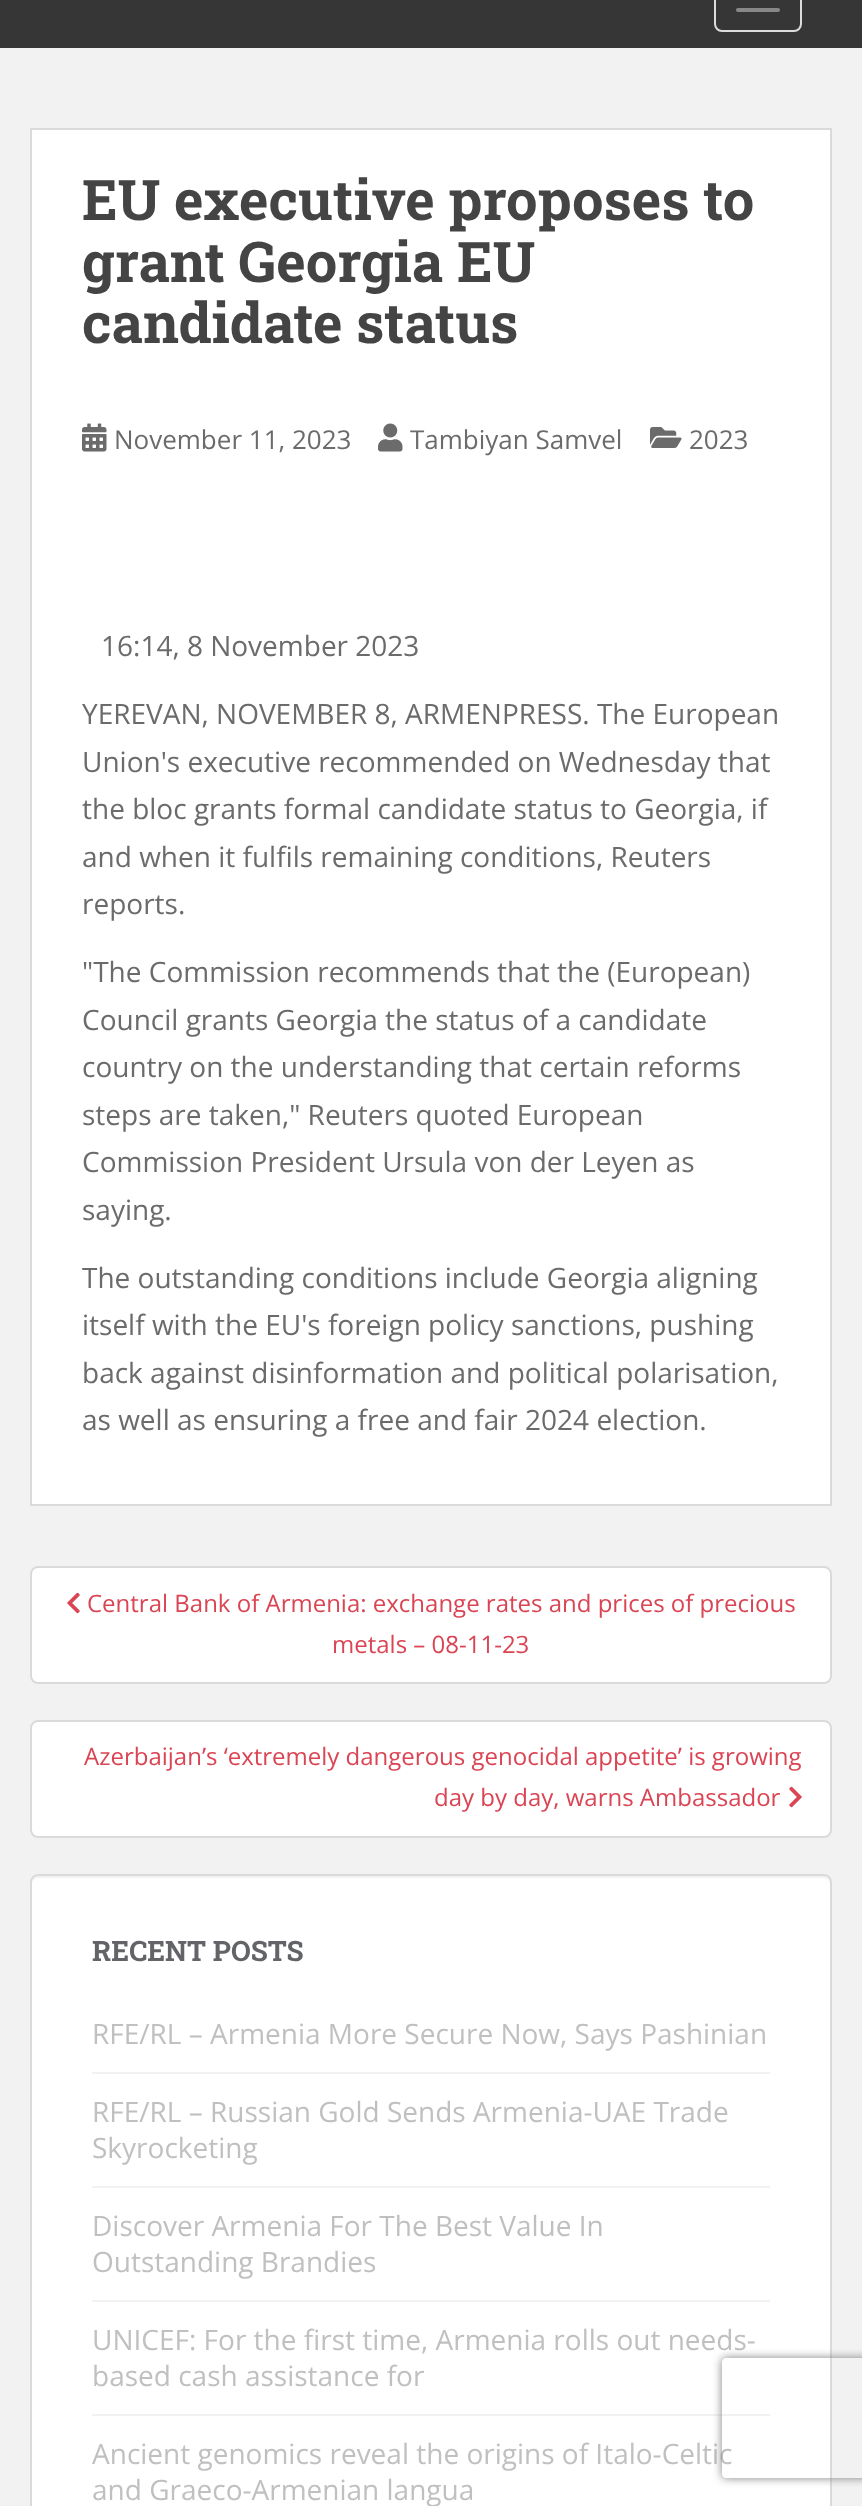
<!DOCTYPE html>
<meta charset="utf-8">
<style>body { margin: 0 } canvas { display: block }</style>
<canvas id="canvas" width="862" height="2506"></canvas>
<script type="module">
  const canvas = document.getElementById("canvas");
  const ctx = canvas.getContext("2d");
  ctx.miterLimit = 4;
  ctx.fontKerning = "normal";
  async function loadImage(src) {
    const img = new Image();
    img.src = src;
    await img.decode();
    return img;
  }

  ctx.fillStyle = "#f2f2f2";
  ctx.fillRect(0, 0, 862, 2506);
  ctx.fillStyle = "#363636";
  ctx.fillRect(0, 0, 862, 48);
  ctx.beginPath();
  ctx.roundRect(715, -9, 86, 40, 7);
  ctx.strokeStyle = "#dddddd";
  ctx.lineWidth = 2;
  ctx.stroke();
  ctx.fillStyle = "#888888";
  ctx.beginPath();
  ctx.roundRect(736, 8, 44, 4, 2);
  ctx.fill();
  ctx.fillStyle = "#ffffff";
  ctx.beginPath();
  ctx.rect(31, 129, 800, 1376);
  ctx.fill();
  ctx.strokeStyle = "#dadada";
  ctx.stroke();
  ctx.font = "bold 56px Roboto Slab";
  ctx.fillStyle = "#444444";
  ctx.fillText("EU executive proposes to", 82, 220);
  ctx.fillText("grant Georgia EU", 82, 282);
  ctx.fillText("candidate status", 82, 343);
  ctx.drawImage(await loadImage("img1.png"), 82, 423, 25, 29);
  ctx.font = "26px Open Sans";
  ctx.fillStyle = "#6b6b6b";
  ctx.fillText("November 11, 2023", 114, 449);
  ctx.drawImage(await loadImage("img2.png"), 378, 423, 25, 29);
  ctx.fillText("Tambiyan Samvel", 410, 449);
  ctx.drawImage(await loadImage("img3.png"), 650, 427, 32, 21);
  ctx.fillText("2023", 689, 449);
  ctx.font = "28px Open Sans";
  ctx.fillText("16:14, 8 November 2023", 101, 656);
  ctx.fillText("YEREVAN, NOVEMBER 8, ARMENPRESS. The European", 82, 724);
  ctx.fillText("Union's executive recommended on Wednesday that", 82, 772);
  ctx.fillText("the bloc grants formal candidate status to Georgia, if", 82, 819);
  ctx.fillText("and when it fulfils remaining conditions, Reuters", 82, 867);
  ctx.fillText("reports.", 82, 914);
  ctx.fillText("\"The Commission recommends that the (European)", 82, 982);
  ctx.fillText("Council grants Georgia the status of a candidate", 82, 1030);
  ctx.fillText("country on the understanding that certain reforms", 82, 1077);
  ctx.fillText("steps are taken,\" Reuters quoted European", 82, 1125);
  ctx.fillText("Commission President Ursula von der Leyen as", 82, 1172);
  ctx.fillText("saying.", 82, 1220);
  ctx.fillText("The outstanding conditions include Georgia aligning", 82, 1288);
  ctx.fillText("itself with the EU's foreign policy sanctions, pushing", 82, 1335);
  ctx.fillText("back against disinformation and political polarisation,", 82, 1383);
  ctx.fillText("as well as ensuring a free and fair 2024 election.", 82, 1430);
  ctx.fillStyle = "#ffffff";
  ctx.beginPath();
  ctx.roundRect(31, 1567, 800, 116, 7);
  ctx.fill();
  ctx.stroke();
  ctx.drawImage(await loadImage("img4.png"), 67, 1592, 13, 22);
  ctx.font = "24px Open Sans";
  ctx.fillStyle = "#da4453";
  ctx.fillText("Central Bank of Armenia: exchange rates and prices of precious", 87, 1612);
  ctx.fillText("metals – 08-11-23", 332, 1653);
  ctx.fillStyle = "#ffffff";
  ctx.beginPath();
  ctx.roundRect(31, 1721, 800, 116, 7);
  ctx.fill();
  ctx.stroke();
  ctx.fillStyle = "#da4453";
  ctx.fillText("Azerbaijan’s ‘extremely dangerous genocidal appetite’ is growing", 84, 1765);
  ctx.fillText("day by day, warns Ambassador", 434, 1806);
  ctx.drawImage(await loadImage("img5.png"), 789, 1786, 13, 22);
  ctx.fillStyle = "#ffffff";
  ctx.beginPath();
  ctx.roundRect(30, 1874, 802, 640, 8);
  ctx.fill();
  ctx.fillStyle = "#f2f2f2";
  ctx.beginPath();
  ctx.moveTo(38, 1878);
  ctx.lineTo(824, 1878);
  ctx.bezierCurveTo(827, 1878, 830, 1881, 830, 1884);
  ctx.lineTo(830, 1882);
  ctx.bezierCurveTo(830, 1879, 827, 1876, 824, 1876);
  ctx.lineTo(38, 1876);
  ctx.bezierCurveTo(35, 1876, 32, 1879, 32, 1882);
  ctx.lineTo(32, 1884);
  ctx.bezierCurveTo(32, 1881, 35, 1878, 38, 1878);
  ctx.closePath();
  ctx.fill();
  ctx.beginPath();
  ctx.roundRect(31, 1875, 800, 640, 7);
  ctx.stroke();
  ctx.font = "bold 28px Roboto Slab";
  ctx.fillStyle = "#636467";
  ctx.fillText("RECENT POSTS", 92, 1961);
  ctx.fillStyle = "#f2f2f2";
  ctx.fillRect(92, 2072, 678, 2);
  ctx.font = "28px Open Sans";
  ctx.fillStyle = "#c1c0c0";
  ctx.fillText("RFE/RL – Armenia More Secure Now, Says Pashinian", 92, 2044);
  ctx.fillStyle = "#f2f2f2";
  ctx.fillRect(92, 2186, 678, 2);
  ctx.fillStyle = "#c1c0c0";
  ctx.fillText("RFE/RL – Russian Gold Sends Armenia-UAE Trade", 92, 2122);
  ctx.fillText("Skyrocketing", 92, 2158);
  ctx.fillStyle = "#f2f2f2";
  ctx.fillRect(92, 2300, 678, 2);
  ctx.fillStyle = "#c1c0c0";
  ctx.fillText("Discover Armenia For The Best Value In", 92, 2236);
  ctx.fillText("Outstanding Brandies", 92, 2272);
  ctx.fillStyle = "#f2f2f2";
  ctx.fillRect(92, 2414, 678, 2);
  ctx.fillStyle = "#c1c0c0";
  ctx.fillText("UNICEF: For the first time, Armenia rolls out needs-", 92, 2350);
  ctx.fillText("based cash assistance for", 92, 2386);
  ctx.fillText("Ancient genomics reveal the origins of Italo-Celtic", 92, 2464);
  ctx.fillText("and Graeco-Armenian langua", 92, 2500);
  ctx.save();
  ctx.beginPath();
  ctx.moveTo(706, 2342);
  ctx.lineTo(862, 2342);
  ctx.lineTo(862, 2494);
  ctx.lineTo(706, 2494);
  ctx.closePath();
  ctx.moveTo(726, 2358);
  ctx.lineTo(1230, 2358);
  ctx.bezierCurveTo(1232, 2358, 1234, 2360, 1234, 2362);
  ctx.lineTo(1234, 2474);
  ctx.bezierCurveTo(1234, 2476, 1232, 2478, 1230, 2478);
  ctx.lineTo(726, 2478);
  ctx.bezierCurveTo(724, 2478, 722, 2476, 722, 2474);
  ctx.lineTo(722, 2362);
  ctx.bezierCurveTo(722, 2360, 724, 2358, 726, 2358);
  ctx.closePath();
  ctx.clip("evenodd");
  ctx.fillStyle = "#808080";
  ctx.filter = "blur(5px)";
  ctx.beginPath();
  ctx.roundRect(722, 2358, 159, 120, 4);
  ctx.fill();
  ctx.filter = "none";
  ctx.restore();
</script>
